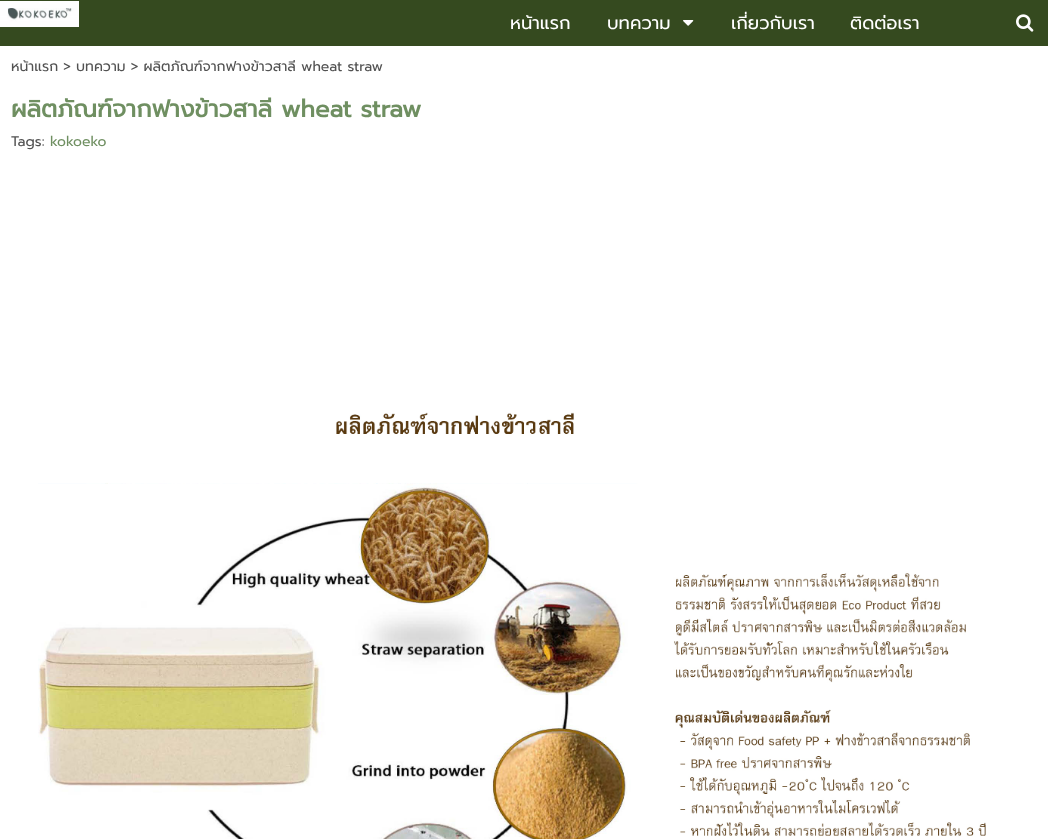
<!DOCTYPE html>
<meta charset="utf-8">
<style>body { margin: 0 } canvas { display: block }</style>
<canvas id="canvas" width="1048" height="839"></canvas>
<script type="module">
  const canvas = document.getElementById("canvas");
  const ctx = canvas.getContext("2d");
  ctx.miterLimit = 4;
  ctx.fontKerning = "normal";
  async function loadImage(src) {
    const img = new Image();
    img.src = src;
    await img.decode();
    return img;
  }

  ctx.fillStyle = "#ffffff";
  ctx.fillRect(0, 0, 1048, 839);
  ctx.fillStyle = "#354a1f";
  ctx.fillRect(0, 0, 1048, 46);
  ctx.drawImage(await loadImage("img1.png"), 0, 1, 79, 26);
  ctx.font = "18px Prompt";
  ctx.fillStyle = "#ffffff";
  ctx.fillText("หน้าแรก", 510, 29);
  ctx.fillText("บทความ", 607, 29);
  ctx.drawImage(await loadImage("img2.png"), 683, 20, 11, 6);
  ctx.fillText("เกี่ยวกับเรา", 731, 29);
  ctx.fillText("ติดต่อเรา", 850, 29);
  ctx.drawImage(await loadImage("img3.png"), 1016, 14, 18, 18);
  ctx.font = "14px Prompt";
  ctx.fillStyle = "#525252";
  ctx.fillText("หน้าแรก > บทความ > ผลิตภัณฑ์จากฟางข้าวสาลี wheat straw", 11, 71);
  ctx.font = "bold 24px Prompt";
  ctx.fillStyle = "#6f8f61";
  ctx.fillText("ผลิตภัณฑ์จากฟางข้าวสาลี wheat straw", 11, 117);
  ctx.font = "14px Prompt";
  ctx.fillStyle = "#525252";
  ctx.fillText("Tags:", 11, 146);
  ctx.fillStyle = "#6f8f61";
  ctx.fillText("kokoeko", 50, 146);
  ctx.drawImage(await loadImage("img4.png"), 38, 412, 948, 427);
</script>
